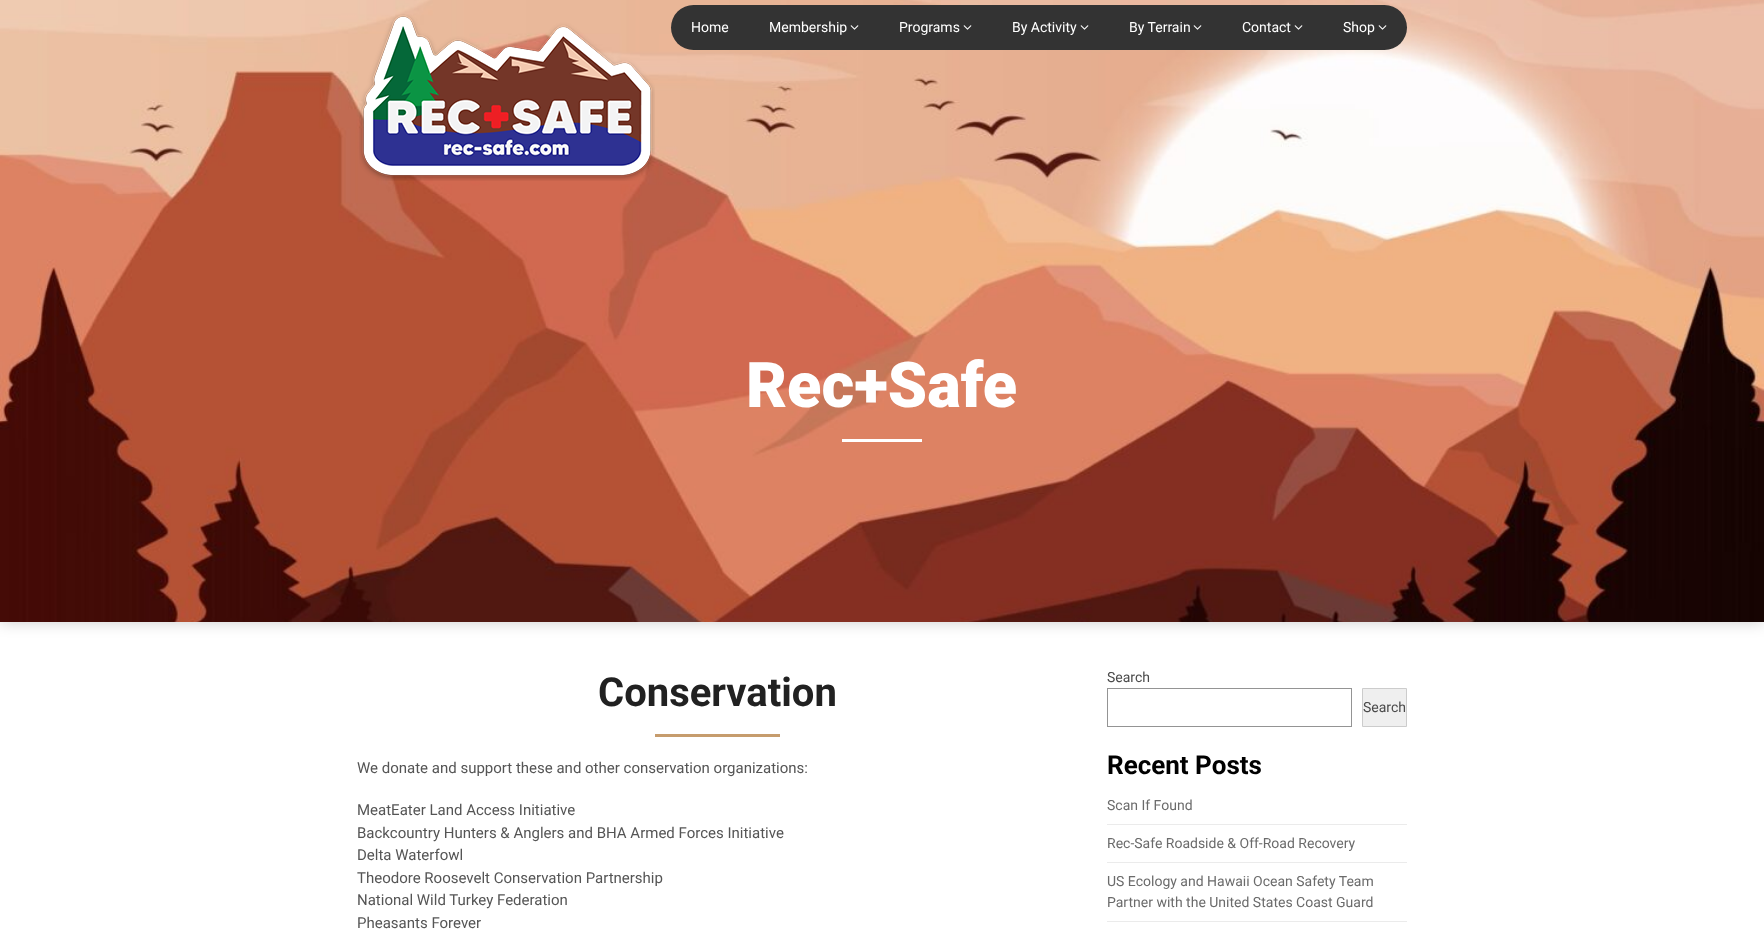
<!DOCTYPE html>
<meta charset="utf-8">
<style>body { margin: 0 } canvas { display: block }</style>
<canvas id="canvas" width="1764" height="929"></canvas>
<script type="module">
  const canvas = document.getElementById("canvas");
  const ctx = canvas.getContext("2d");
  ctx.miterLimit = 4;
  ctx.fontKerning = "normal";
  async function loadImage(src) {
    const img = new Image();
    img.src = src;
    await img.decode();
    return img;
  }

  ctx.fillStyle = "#ffffff";
  ctx.fillRect(0, 0, 1764, 929);
  ctx.fillStyle = "rgba(0, 0, 0, 0.2)";
  ctx.filter = "blur(7.5px)";
  ctx.beginPath();
  ctx.rect(0, 0, 1764, 622);
  ctx.fill();
  ctx.filter = "none";
  ctx.drawImage(await loadImage("img1.png"), 0, 0, 1764, 622);
  ctx.drawImage(await loadImage("img2.png"), 359, 14, 296, 167);
  ctx.fillStyle = "#333333";
  ctx.beginPath();
  ctx.roundRect(671, 5, 736, 45, 22.5);
  ctx.fill();
  ctx.font = "14px Roboto";
  ctx.fillStyle = "#ffffff";
  ctx.fillText("Home", 691, 32);
  ctx.fillText("Membership", 769, 32);
  ctx.drawImage(await loadImage("img3.png"), 850, 25, 9, 5);
  ctx.fillText("Programs", 899, 32);
  ctx.drawImage(await loadImage("img3.png"), 963, 25, 9, 5);
  ctx.fillText("By Activity", 1012, 32);
  ctx.drawImage(await loadImage("img3.png"), 1080, 25, 9, 5);
  ctx.fillText("By Terrain", 1129, 32);
  ctx.drawImage(await loadImage("img3.png"), 1193, 25, 9, 5);
  ctx.fillText("Contact", 1242, 32);
  ctx.drawImage(await loadImage("img3.png"), 1294, 25, 9, 5);
  ctx.fillText("Shop", 1343, 32);
  ctx.drawImage(await loadImage("img3.png"), 1378, 25, 9, 5);
  ctx.font = "900 63px Roboto";
  ctx.fillText("Rec+Safe", 746, 407);
  ctx.fillRect(842, 439, 80, 3);
  ctx.font = "bold 40px Roboto";
  ctx.fillStyle = "#212121";
  ctx.fillText("Conservation", 598, 706);
  ctx.fillStyle = "#c69c6d";
  ctx.fillRect(655, 734, 125, 3);
  ctx.font = "15px Roboto";
  ctx.fillStyle = "#555555";
  ctx.fillText("We donate and support these and other conservation organizations:", 357, 773);
  ctx.fillText("MeatEater Land Access Initiative", 357, 815);
  ctx.fillText("Backcountry Hunters & Anglers and BHA Armed Forces Initiative", 357, 838);
  ctx.fillText("Delta Waterfowl", 357, 860);
  ctx.fillText("Theodore Roosevelt Conservation Partnership", 357, 883);
  ctx.fillText("National Wild Turkey Federation", 357, 905);
  ctx.fillText("Pheasants Forever", 357, 928);
  ctx.font = "14px Roboto";
  ctx.fillStyle = "#4a4a4a";
  ctx.fillText("Search", 1107, 682);
  ctx.strokeStyle = "#949494";
  ctx.strokeRect(1107.5, 688.5, 244, 38);
  ctx.fillStyle = "#efefef";
  ctx.beginPath();
  ctx.rect(1362.5, 688.5, 44, 38);
  ctx.fill();
  ctx.strokeStyle = "#cccccc";
  ctx.stroke();
  ctx.fillStyle = "#4a4a4a";
  ctx.fillText("Search", 1363, 712);
  ctx.font = "bold 26px Roboto";
  ctx.fillStyle = "#000000";
  ctx.fillText("Recent Posts", 1107, 774);
  ctx.fillStyle = "#ebebeb";
  ctx.fillRect(1107, 824, 300, 1);
  ctx.font = "14px Roboto";
  ctx.fillStyle = "#6b6b6b";
  ctx.fillText("Scan If Found", 1107, 810);
  ctx.fillStyle = "#ebebeb";
  ctx.fillRect(1107, 862, 300, 1);
  ctx.fillStyle = "#6b6b6b";
  ctx.fillText("Rec-Safe Roadside & Off-Road Recovery", 1107, 848);
  ctx.fillStyle = "#ebebeb";
  ctx.fillRect(1107, 921, 300, 1);
  ctx.fillStyle = "#6b6b6b";
  ctx.fillText("US Ecology and Hawaii Ocean Safety Team", 1107, 886);
  ctx.fillText("Partner with the United States Coast Guard", 1107, 907);
</script>
